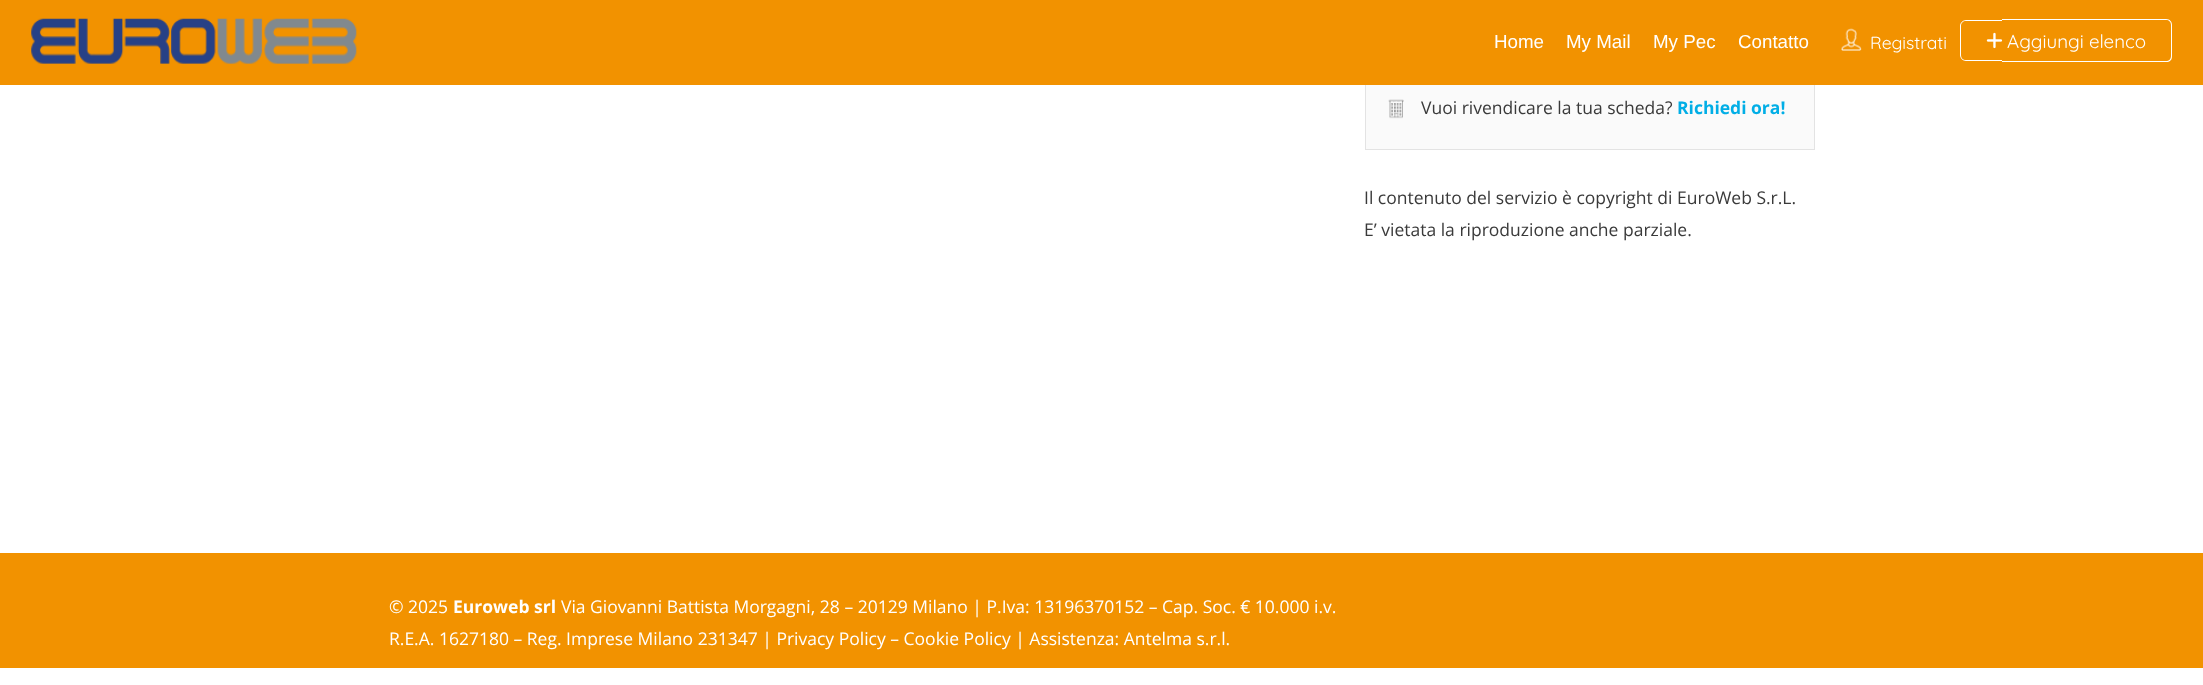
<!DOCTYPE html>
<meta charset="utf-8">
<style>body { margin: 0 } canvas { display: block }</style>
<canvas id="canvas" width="2203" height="685"></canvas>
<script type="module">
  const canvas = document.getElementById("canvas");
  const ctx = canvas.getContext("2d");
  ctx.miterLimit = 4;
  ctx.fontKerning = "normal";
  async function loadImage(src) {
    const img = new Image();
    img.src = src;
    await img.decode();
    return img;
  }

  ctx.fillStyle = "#ffffff";
  ctx.fillRect(0, 0, 2203, 685);
  ctx.fillStyle = "#f29200";
  ctx.fillRect(0, 0, 2203, 85);
  ctx.drawImage(await loadImage("img1.png"), 31, 18, 326, 46);
  ctx.font = "18.75px Liberation Sans";
  ctx.fillStyle = "#ffffff";
  ctx.fillText("Home", 1494, 48);
  ctx.fillText("My Mail", 1566, 48);
  ctx.fillText("My Pec", 1653, 48);
  ctx.fillText("Contatto", 1738, 48);
  ctx.drawImage(await loadImage("img2.png"), 1841, 28, 21, 23);
  ctx.font = "300 17.5px Quicksand";
  ctx.fillText("Registrati", 1870, 49);
  ctx.beginPath();
  ctx.moveTo(1966, 20);
  ctx.lineTo(2002, 20);
  ctx.lineTo(2002, 61);
  ctx.lineTo(1966, 61);
  ctx.bezierCurveTo(1963, 61, 1960, 58, 1960, 55);
  ctx.lineTo(1960, 26);
  ctx.bezierCurveTo(1960, 23, 1963, 20, 1966, 20);
  ctx.closePath();
  ctx.moveTo(1966, 21);
  ctx.lineTo(2002, 21);
  ctx.lineTo(2002, 60);
  ctx.lineTo(1966, 60);
  ctx.bezierCurveTo(1963, 60, 1961, 58, 1961, 55);
  ctx.lineTo(1961, 26);
  ctx.bezierCurveTo(1961, 23, 1963, 21, 1966, 21);
  ctx.closePath();
  ctx.fill("evenodd");
  ctx.beginPath();
  ctx.moveTo(2002, 19);
  ctx.lineTo(2166, 19);
  ctx.bezierCurveTo(2170, 19, 2172, 22, 2172, 25);
  ctx.lineTo(2172, 56);
  ctx.bezierCurveTo(2172, 60, 2170, 62, 2166, 62);
  ctx.lineTo(2002, 62);
  ctx.closePath();
  ctx.moveTo(2002, 20);
  ctx.lineTo(2166, 20);
  ctx.bezierCurveTo(2169, 20, 2171, 22, 2171, 25);
  ctx.lineTo(2171, 56);
  ctx.bezierCurveTo(2171, 59, 2169, 61, 2166, 61);
  ctx.lineTo(2002, 61);
  ctx.closePath();
  ctx.fill("evenodd");
  ctx.drawImage(await loadImage("img3.png"), 1986, 32, 17, 17);
  ctx.font = "300 18.75px Quicksand";
  ctx.fillText("Aggiungi elenco", 2007, 48);
  ctx.fillStyle = "#fafafa";
  ctx.fillRect(1366, 85, 448, 64);
  ctx.fillStyle = "#e3e3e3";
  ctx.fillRect(1814, 85, 1, 65);
  ctx.fillRect(1365, 149, 450, 1);
  ctx.fillRect(1365, 85, 1, 65);
  ctx.drawImage(await loadImage("img4.png"), 1388, 99, 16, 20);
  ctx.font = "17.5px Open Sans";
  ctx.fillStyle = "#3a3a3a";
  ctx.fillText("Vuoi rivendicare la tua scheda?", 1421, 114);
  ctx.font = "bold 17.5px Open Sans";
  ctx.fillStyle = "#01aee6";
  ctx.fillText("Richiedi ora!", 1677, 114);
  ctx.font = "17.5px Open Sans";
  ctx.fillStyle = "#3a3a3a";
  ctx.fillText("Il contenuto del servizio è copyright di EuroWeb S.r.L.", 1364, 204);
  ctx.fillText("E’ vietata la riproduzione anche parziale.", 1364, 236);
  ctx.fillStyle = "#f29200";
  ctx.fillRect(0, 553, 2203, 115);
  ctx.fillStyle = "#ffffff";
  ctx.fillText("© 2025", 389, 613);
  ctx.font = "bold 17.5px Open Sans";
  ctx.fillText("Euroweb srl", 453, 613);
  ctx.font = "17.5px Open Sans";
  ctx.fillText("Via Giovanni Battista Morgagni, 28 – 20129 Milano | P.Iva: 13196370152 – Cap. Soc. € 10.000 i.v.", 561, 613);
  ctx.fillText("R.E.A. 1627180 – Reg. Imprese Milano 231347 | Privacy Policy – Cookie Policy | Assistenza: Antelma s.r.l.", 389, 645);
</script>
